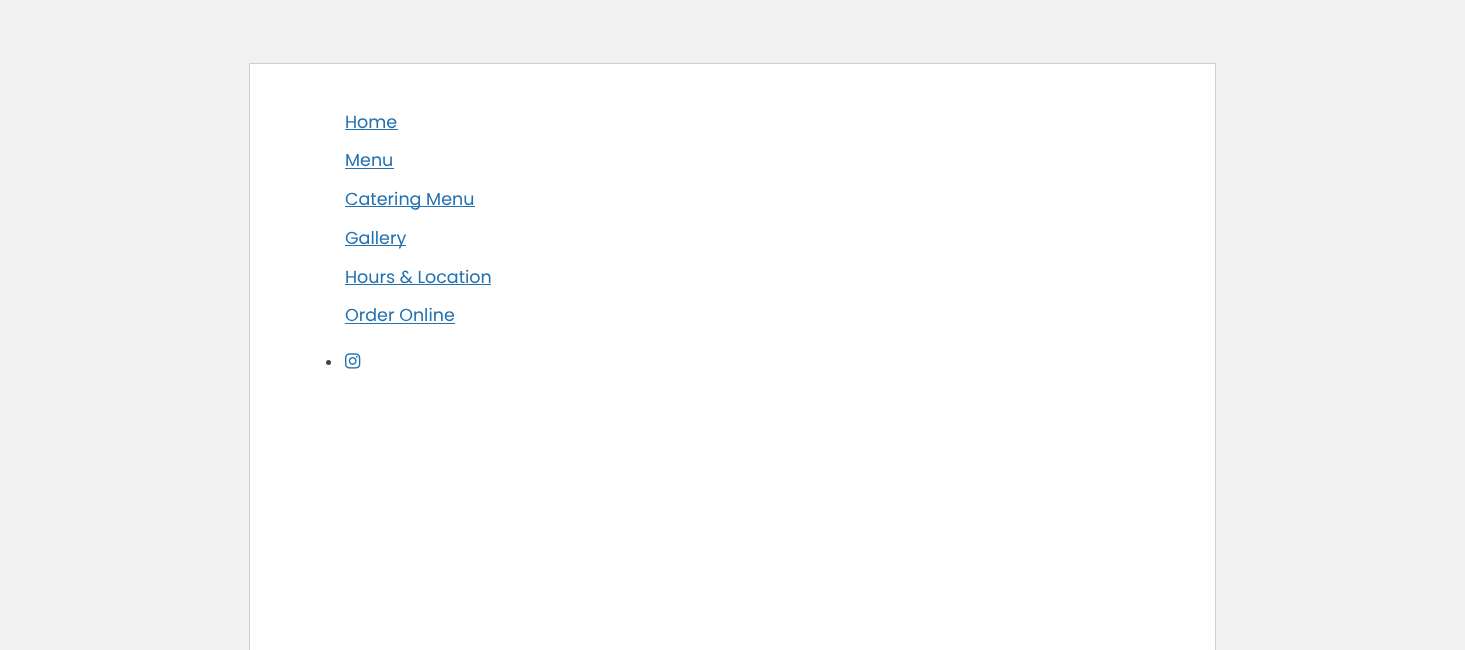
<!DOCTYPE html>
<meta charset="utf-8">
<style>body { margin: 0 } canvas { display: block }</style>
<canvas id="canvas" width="1465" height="650"></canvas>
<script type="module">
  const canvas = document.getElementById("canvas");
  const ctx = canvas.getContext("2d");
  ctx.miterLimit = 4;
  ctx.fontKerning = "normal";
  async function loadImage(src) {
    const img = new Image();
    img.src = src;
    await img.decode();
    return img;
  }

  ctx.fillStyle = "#f1f1f1";
  ctx.fillRect(0, 0, 1465, 650);
  ctx.fillStyle = "#ffffff";
  ctx.beginPath();
  ctx.rect(249.5, 63.5, 966, 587);
  ctx.fill();
  ctx.strokeStyle = "#ccd0d4";
  ctx.stroke();
  ctx.font = "17.5px Poppins";
  ctx.fillStyle = "#2271b1";
  ctx.fillText("Home", 345, 128);
  ctx.fillRect(345, 129, 53, 1);
  ctx.fillText("Menu", 345, 166);
  ctx.fillRect(345, 168, 49, 1);
  ctx.fillRect(345, 206, 130, 1);
  ctx.fillText("Catering Menu", 345, 205);
  ctx.fillRect(345, 245, 61, 1);
  ctx.fillText("Gallery", 345, 244);
  ctx.fillText("Hours & Location", 345, 283);
  ctx.fillRect(345, 284, 146, 1);
  ctx.fillText("Order Online", 345, 321);
  ctx.fillRect(345, 323, 110, 1);
  ctx.fillStyle = "#444444";
  ctx.beginPath();
  ctx.arc(328.5, 362.5, 2.5, 0, Math.PI * 2);
  ctx.fill();
  ctx.drawImage(await loadImage("img1.png"), 345, 353, 16, 16);
</script>
